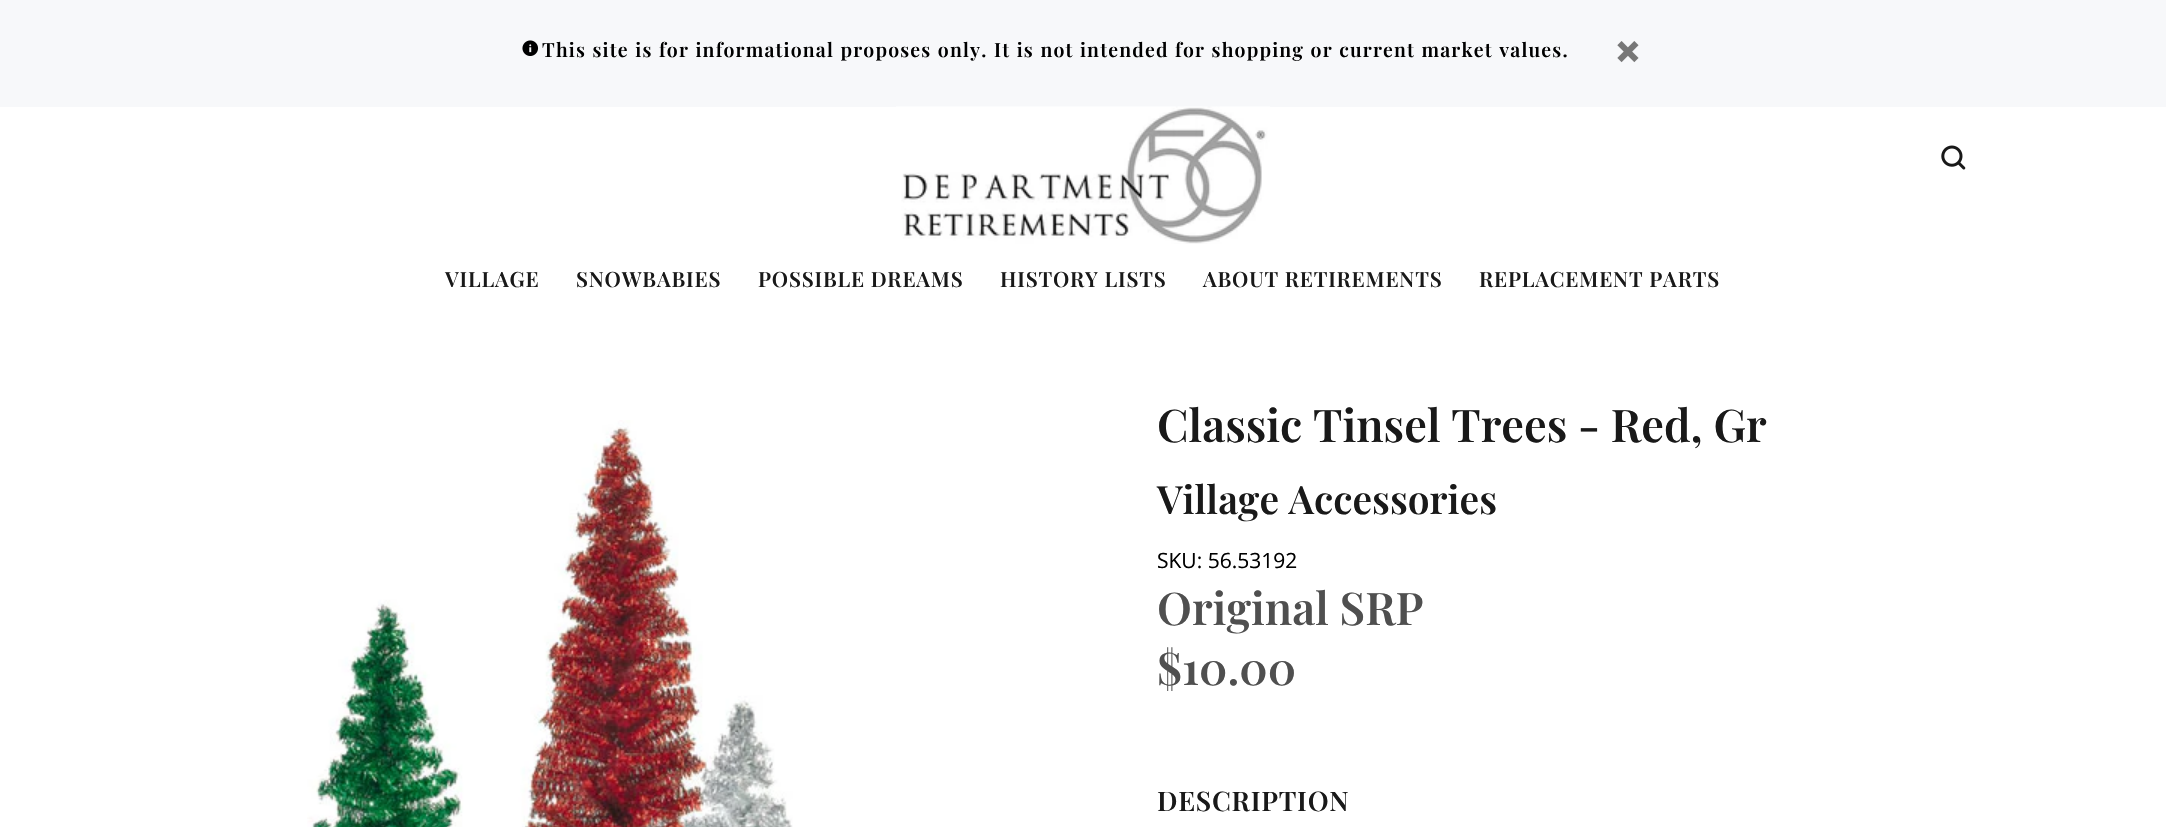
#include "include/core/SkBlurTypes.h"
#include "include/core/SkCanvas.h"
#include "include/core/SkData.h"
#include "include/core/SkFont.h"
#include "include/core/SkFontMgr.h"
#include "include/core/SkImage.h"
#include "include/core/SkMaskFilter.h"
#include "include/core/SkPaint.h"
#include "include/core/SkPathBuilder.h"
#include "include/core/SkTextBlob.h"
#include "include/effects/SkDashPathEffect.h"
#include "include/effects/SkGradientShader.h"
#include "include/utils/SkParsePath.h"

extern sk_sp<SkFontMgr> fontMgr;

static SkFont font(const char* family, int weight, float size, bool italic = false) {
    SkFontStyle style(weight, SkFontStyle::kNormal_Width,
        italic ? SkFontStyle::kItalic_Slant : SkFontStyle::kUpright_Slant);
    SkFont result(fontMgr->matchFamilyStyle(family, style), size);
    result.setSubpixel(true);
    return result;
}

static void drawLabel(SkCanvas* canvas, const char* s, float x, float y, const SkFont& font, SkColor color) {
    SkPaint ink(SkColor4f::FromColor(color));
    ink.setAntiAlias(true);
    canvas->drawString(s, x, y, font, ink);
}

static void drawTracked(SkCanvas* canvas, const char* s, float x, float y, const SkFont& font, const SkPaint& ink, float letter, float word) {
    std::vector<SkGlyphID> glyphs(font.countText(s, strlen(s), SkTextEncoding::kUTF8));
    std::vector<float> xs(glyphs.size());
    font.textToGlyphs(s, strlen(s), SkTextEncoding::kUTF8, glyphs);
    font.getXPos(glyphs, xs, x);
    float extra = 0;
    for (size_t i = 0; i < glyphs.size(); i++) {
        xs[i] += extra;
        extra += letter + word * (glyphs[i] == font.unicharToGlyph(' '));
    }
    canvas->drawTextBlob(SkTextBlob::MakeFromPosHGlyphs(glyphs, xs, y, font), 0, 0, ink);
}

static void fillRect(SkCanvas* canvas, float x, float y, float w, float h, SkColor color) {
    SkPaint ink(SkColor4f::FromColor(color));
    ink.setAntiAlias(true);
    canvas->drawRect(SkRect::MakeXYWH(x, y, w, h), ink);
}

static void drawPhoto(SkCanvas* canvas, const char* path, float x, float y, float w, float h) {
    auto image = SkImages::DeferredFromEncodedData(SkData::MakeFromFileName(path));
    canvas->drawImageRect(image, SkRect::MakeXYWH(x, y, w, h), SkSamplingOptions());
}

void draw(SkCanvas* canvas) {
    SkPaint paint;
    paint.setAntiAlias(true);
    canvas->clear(0xFFFFFFFF);
    fillRect(canvas, 0, 0, 2166, 107, 0xFFF7F8FA);
    drawPhoto(canvas, "assets/img1.png", 522, 40, 17, 16);
    SkFont font1 = font("Playfair Display", 600, 19.5f);
    paint.setColor(0xFF000000);
    drawTracked(canvas, "This site is for informational proposes only. It is not intended for shopping or current market values.", 542, 57, font1, paint, 1.17f, 0.6f);
    drawPhoto(canvas, "assets/img2.png", 1617, 41, 22, 22);
    drawPhoto(canvas, "assets/img3.png", 896, 106, 374, 138);
    drawPhoto(canvas, "assets/img4.png", 1941, 145, 25, 25);
    SkFont font2 = font("Playfair Display", 600, 21);
    paint.setColor(0xFF191919);
    drawTracked(canvas, "VILLAGE", 445, 287, font2, paint, 0.8f, 0);
    drawTracked(canvas, "SNOWBABIES", 576, 287, font2, paint, 0.8f, 0);
    drawTracked(canvas, "POSSIBLE DREAMS", 758, 287, font2, paint, 0.8f, 0);
    drawTracked(canvas, "HISTORY LISTS", 1000, 287, font2, paint, 0.8f, 0);
    drawTracked(canvas, "ABOUT RETIREMENTS", 1203, 287, font2, paint, 0.8f, 0);
    drawTracked(canvas, "REPLACEMENT PARTS", 1479, 287, font2, paint, 0.8f, 0);
    drawPhoto(canvas, "assets/img5.png", 307, 420, 486, 407);
    SkFont font3 = font("Playfair Display", 600, 45);
    drawLabel(canvas, "Classic Tinsel Trees - Red, Gr", 1157, 442, font3, 0xFF191919);
    SkFont font4 = font("Playfair Display", 600, 39);
    drawLabel(canvas, "Village Accessories", 1157, 514, font4, 0xFF191919);
    SkFont font5 = font("Open Sans", 400, 21);
    drawLabel(canvas, "SKU: 56.53192", 1157, 568, font5, 0xFF000000);
    drawLabel(canvas, "Original SRP", 1157, 625, font3, 0xFF4F4F4F);
    drawLabel(canvas, "$10.00", 1157, 685, font3, 0xFF4F4F4F);
    SkFont font6 = font("Playfair Display", 600, 27);
    drawTracked(canvas, "DESCRIPTION", 1157, 811, font6, paint, 0.75f, 0);
}
